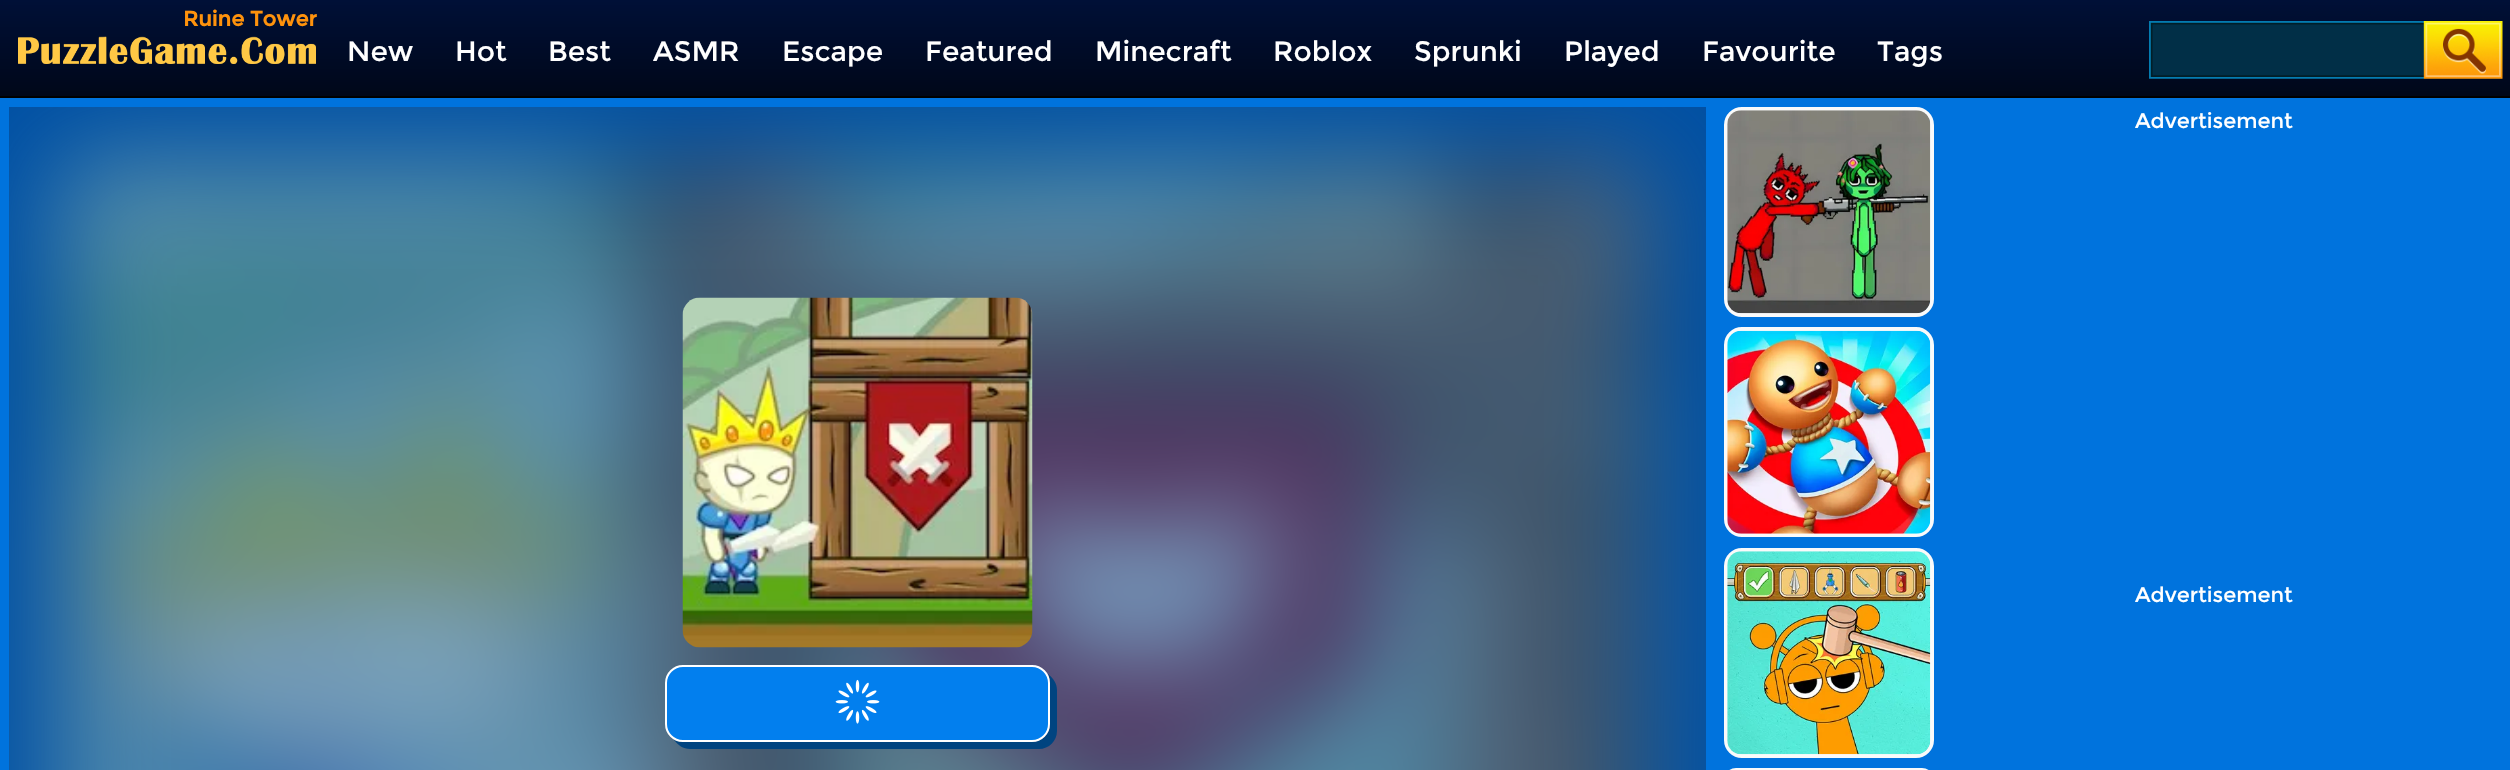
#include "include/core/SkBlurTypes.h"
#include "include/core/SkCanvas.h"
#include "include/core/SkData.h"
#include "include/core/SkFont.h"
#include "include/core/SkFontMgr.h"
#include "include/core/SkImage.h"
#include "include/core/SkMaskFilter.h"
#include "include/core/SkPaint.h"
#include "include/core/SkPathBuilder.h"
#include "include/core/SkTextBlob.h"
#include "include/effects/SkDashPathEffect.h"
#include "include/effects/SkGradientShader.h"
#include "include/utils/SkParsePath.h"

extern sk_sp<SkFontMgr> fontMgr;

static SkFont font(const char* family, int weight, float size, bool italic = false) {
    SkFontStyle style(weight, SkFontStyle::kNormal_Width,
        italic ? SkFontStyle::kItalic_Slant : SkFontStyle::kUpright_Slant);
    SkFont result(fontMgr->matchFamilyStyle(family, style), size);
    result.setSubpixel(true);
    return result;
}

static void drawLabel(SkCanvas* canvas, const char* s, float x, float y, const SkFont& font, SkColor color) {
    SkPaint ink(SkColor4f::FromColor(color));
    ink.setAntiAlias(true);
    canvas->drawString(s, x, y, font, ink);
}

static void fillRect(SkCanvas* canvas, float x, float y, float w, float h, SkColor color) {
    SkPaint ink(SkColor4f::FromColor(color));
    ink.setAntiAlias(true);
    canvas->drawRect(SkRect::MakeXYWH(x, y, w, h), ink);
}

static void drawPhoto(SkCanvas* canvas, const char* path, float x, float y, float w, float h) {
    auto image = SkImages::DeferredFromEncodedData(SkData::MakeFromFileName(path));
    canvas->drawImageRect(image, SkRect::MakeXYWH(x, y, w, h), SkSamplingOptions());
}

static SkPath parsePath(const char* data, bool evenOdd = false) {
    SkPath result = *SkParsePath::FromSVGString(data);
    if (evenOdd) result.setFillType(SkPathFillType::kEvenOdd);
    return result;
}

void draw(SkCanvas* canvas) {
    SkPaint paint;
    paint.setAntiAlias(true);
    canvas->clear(0xFF0073DD);
    {
        const SkColor colors[] = {0xFF001037, 0xFF000719};
        const float stops[] = {0, 1};
        const SkPoint ends[] = {{1256, 0}, {1256, 96}};
        paint.setShader(SkGradientShader::MakeLinear(ends, colors, stops, 2, SkTileMode::kClamp));
        paint.setAlpha(255);
    }
    canvas->drawRect(SkRect::MakeXYWH(0, 0, 2510, 96), paint);
    fillRect(canvas, 0, 96, 2510, 2, 0xFF000000);
    SkFont font1 = font("Montserrat", 700, 21);
    drawLabel(canvas, "Ruine Tower", 183, 26, font1, 0xFFFE920C);
    drawPhoto(canvas, "assets/img1.png", 18, 36, 298, 28);
    SkFont font2 = font("Montserrat", 400, 28);
    drawLabel(canvas, "New", 347, 61, font2, 0xFFFFFFFF);
    drawLabel(canvas, "Hot", 455, 61, font2, 0xFFFFFFFF);
    drawLabel(canvas, "Best", 548, 61, font2, 0xFFFFFFFF);
    drawLabel(canvas, "ASMR", 653, 61, font2, 0xFFFFFFFF);
    drawLabel(canvas, "Escape", 782, 61, font2, 0xFFFFFFFF);
    drawLabel(canvas, "Featured", 925, 61, font2, 0xFFFFFFFF);
    drawLabel(canvas, "Minecraft", 1095, 61, font2, 0xFFFFFFFF);
    drawLabel(canvas, "Roblox", 1273, 61, font2, 0xFFFFFFFF);
    drawLabel(canvas, "Sprunki", 1414, 61, font2, 0xFFFFFFFF);
    drawLabel(canvas, "Played", 1564, 61, font2, 0xFFFFFFFF);
    drawLabel(canvas, "Favourite", 1702, 61, font2, 0xFFFFFFFF);
    drawLabel(canvas, "Tags", 1877, 61, font2, 0xFFFFFFFF);
    drawPhoto(canvas, "assets/img2.png", 2149, 21, 354, 58);
    fillRect(canvas, 9, 107, 1697, 663, 0xFF0050A4);
    drawPhoto(canvas, "assets/img3.png", 9, 107, 1697, 663);
    drawPhoto(canvas, "assets/img4.png", 682, 297, 351, 351);
    paint.setShader(nullptr);
    paint.setColor(0xFF004480);
    canvas->drawPath(parsePath("M674 740C678 745 683 749 690 749H1039C1049 749 1057 741 1057 731V690C1057 683 1053 678 1048 674C1049 677 1050 680 1050 682V724C1050 734 1042 742 1032 742H682C680 742 677 741 674 740Z"), paint);
    paint.setColor(0xFF027FEE);
    canvas->drawRoundRect(SkRect::MakeXYWH(666, 666, 383, 75), 17, 17, paint);
    paint.setStroke(true);
    paint.setStrokeWidth(2);
    paint.setColor(0xFFFFFFFF);
    canvas->drawRoundRect(SkRect::MakeXYWH(666, 666, 383, 75), 17, 17, paint);
    drawPhoto(canvas, "assets/img5.png", 835, 679, 45, 45);
    paint.setStrokeWidth(4);
    paint.setColor(0xFFFAFAFA);
    canvas->drawRoundRect(SkRect::MakeXYWH(1726, 109, 206, 206), 16, 16, paint);
    drawPhoto(canvas, "assets/img6.png", 1727, 110, 204, 204);
    canvas->drawRoundRect(SkRect::MakeXYWH(1726, 329, 206, 206), 16, 16, paint);
    drawPhoto(canvas, "assets/img7.png", 1727, 330, 204, 204);
    canvas->drawRoundRect(SkRect::MakeXYWH(1726, 550, 206, 206), 16, 16, paint);
    drawPhoto(canvas, "assets/img8.png", 1727, 551, 204, 204);
    canvas->drawRoundRect(SkRect::MakeXYWH(1726, 770, 206, 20), 16, 16, paint);
    SkFont font3 = font("Montserrat", 400, 21);
    drawLabel(canvas, "Advertisement", 2135, 128, font3, 0xFFFFFFFF);
    drawLabel(canvas, "Advertisement", 2135, 602, font3, 0xFFFFFFFF);
}
